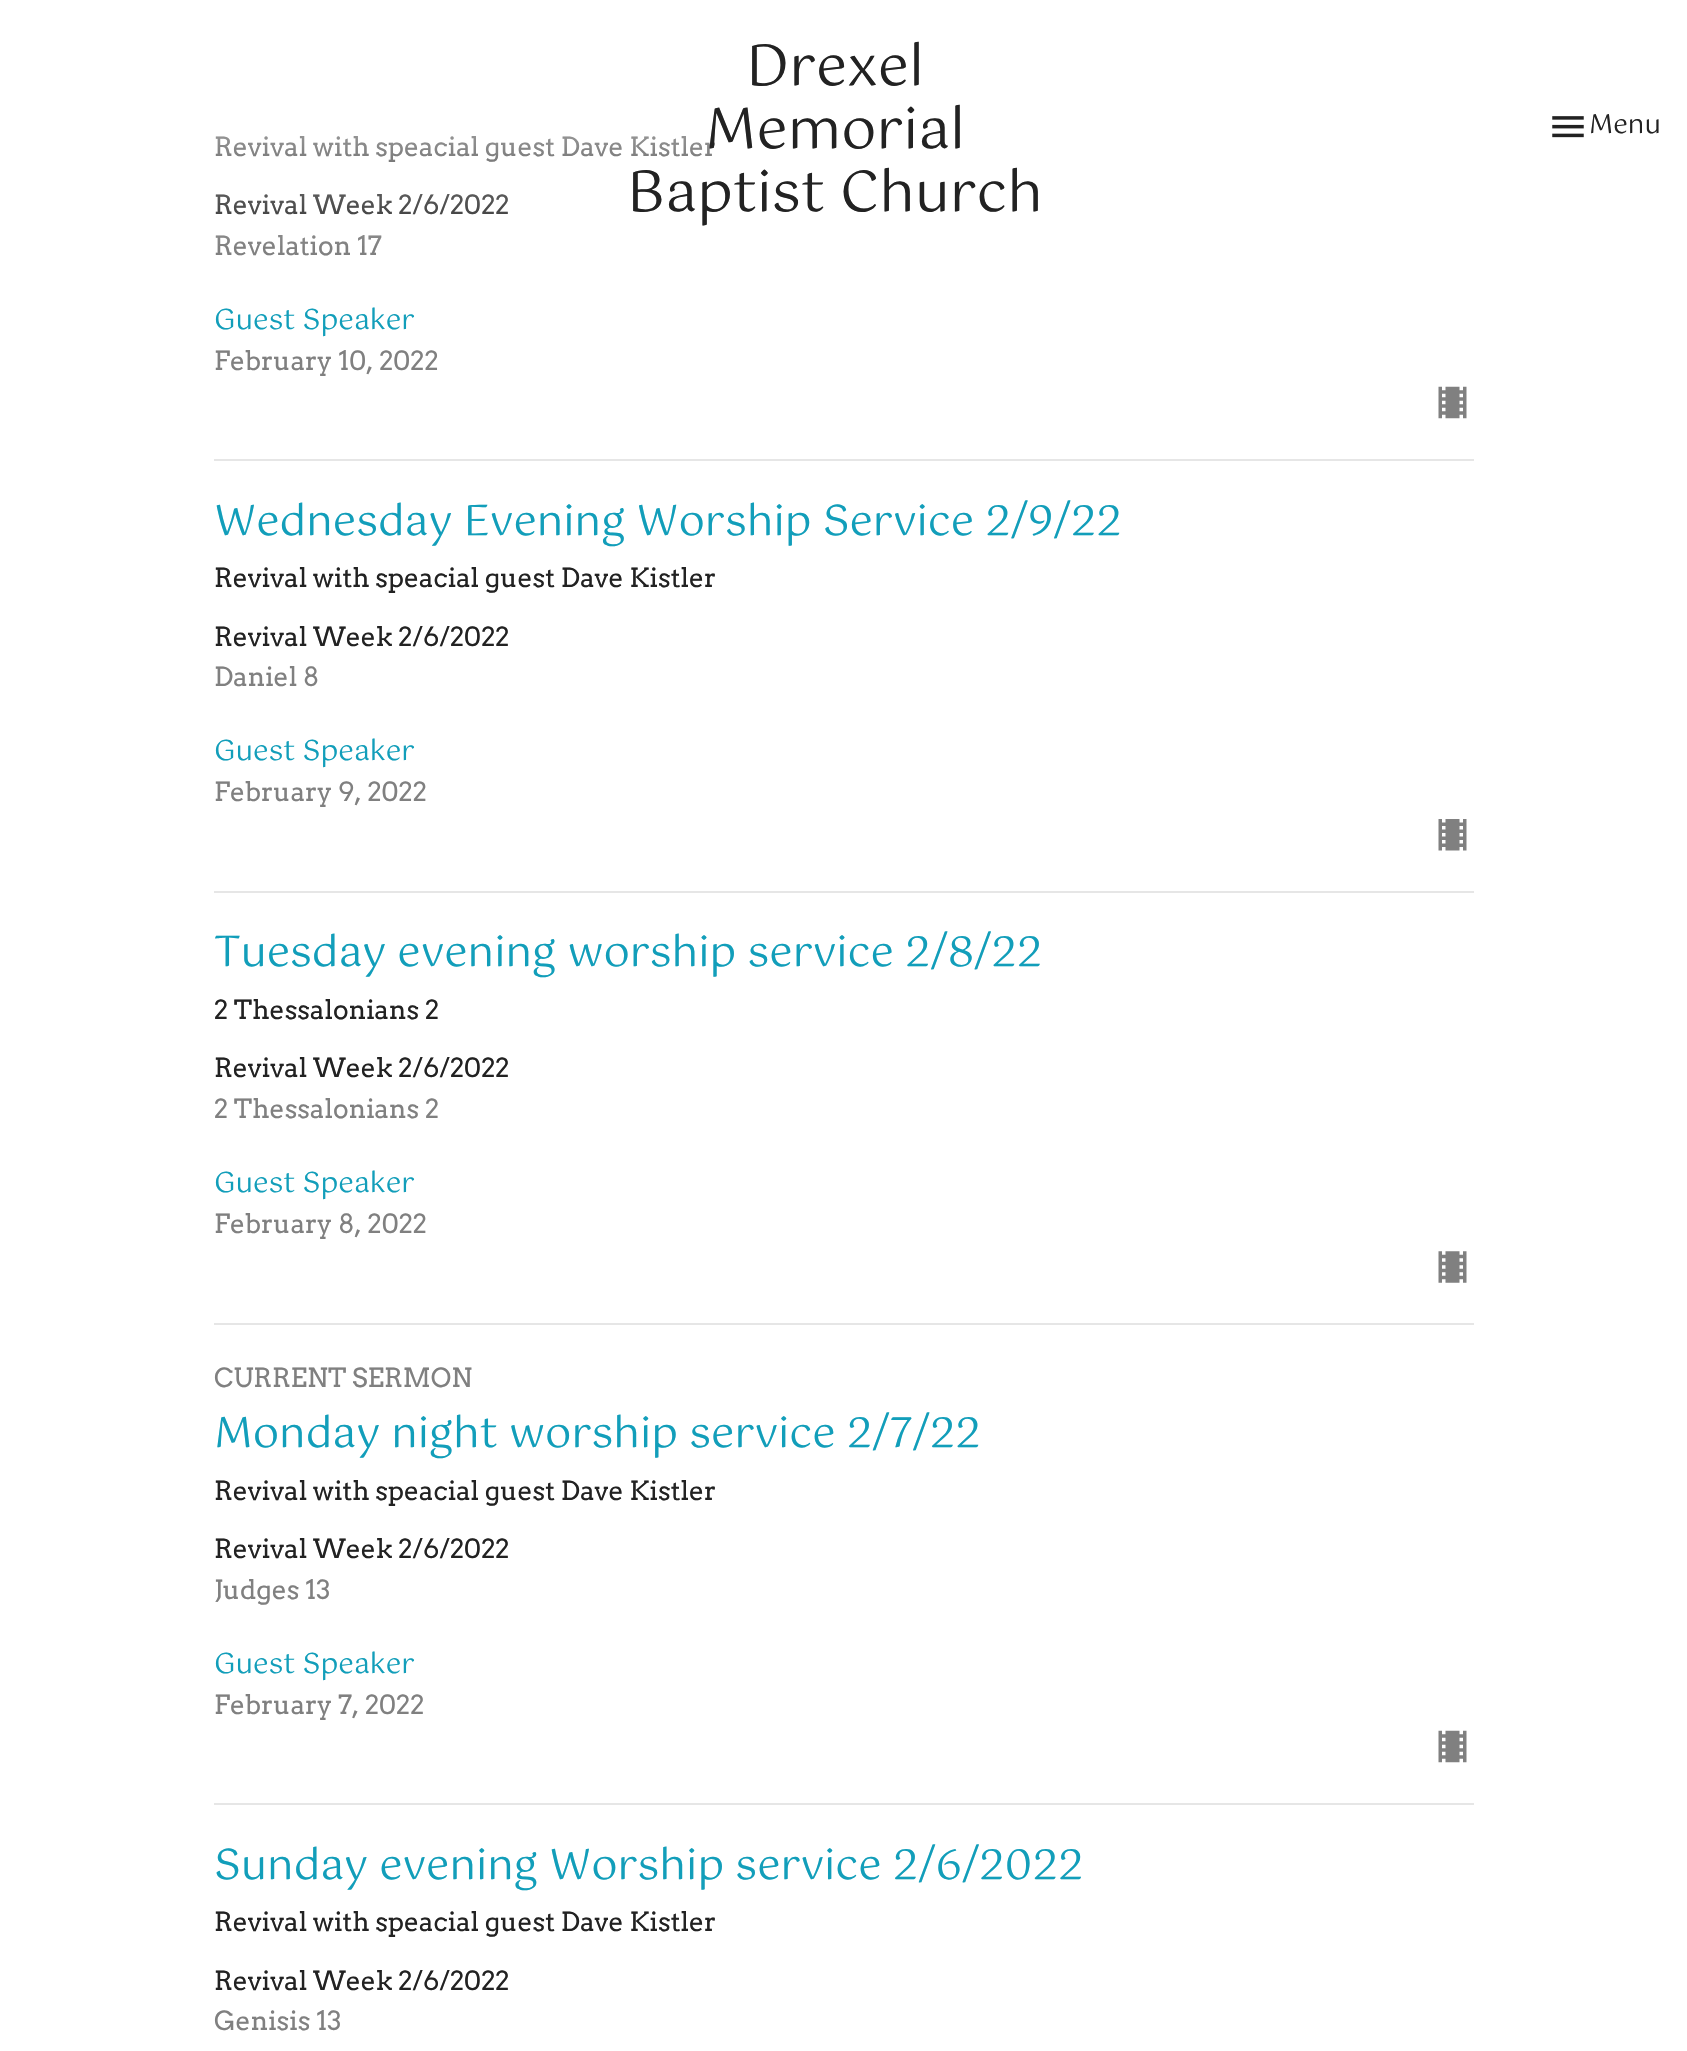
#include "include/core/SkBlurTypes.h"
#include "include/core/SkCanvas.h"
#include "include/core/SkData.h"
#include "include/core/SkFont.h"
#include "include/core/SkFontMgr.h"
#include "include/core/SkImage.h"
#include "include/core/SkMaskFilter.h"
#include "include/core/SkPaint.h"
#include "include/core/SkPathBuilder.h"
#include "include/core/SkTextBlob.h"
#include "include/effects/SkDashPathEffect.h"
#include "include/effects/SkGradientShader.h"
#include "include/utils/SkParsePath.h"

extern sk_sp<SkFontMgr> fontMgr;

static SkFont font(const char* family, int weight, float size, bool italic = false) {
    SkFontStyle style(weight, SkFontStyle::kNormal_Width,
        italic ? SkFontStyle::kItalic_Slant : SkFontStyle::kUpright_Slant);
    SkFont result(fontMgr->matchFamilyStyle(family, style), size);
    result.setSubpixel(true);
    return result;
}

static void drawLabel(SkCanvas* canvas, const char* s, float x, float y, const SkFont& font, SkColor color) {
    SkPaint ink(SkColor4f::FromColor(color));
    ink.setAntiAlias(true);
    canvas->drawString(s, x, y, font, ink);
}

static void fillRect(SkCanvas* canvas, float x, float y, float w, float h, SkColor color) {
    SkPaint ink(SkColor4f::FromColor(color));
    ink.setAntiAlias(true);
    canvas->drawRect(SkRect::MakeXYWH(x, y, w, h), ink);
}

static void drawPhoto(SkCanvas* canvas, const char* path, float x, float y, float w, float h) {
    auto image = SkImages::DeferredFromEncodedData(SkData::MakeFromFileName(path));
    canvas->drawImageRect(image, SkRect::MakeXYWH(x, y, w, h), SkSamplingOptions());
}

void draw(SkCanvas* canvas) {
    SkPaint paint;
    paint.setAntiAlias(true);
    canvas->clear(0xFFFFFFFF);
    SkFont font1 = font("Arvo", 400, 26.25f);
    drawLabel(canvas, "Revival with speacial guest Dave Kistler", 214, 156, font1, 0xFF222222);
    drawLabel(canvas, "Revival Week 2/6/2022", 214, 214, font1, 0xFF222222);
    drawLabel(canvas, "Revelation 17", 214, 255, font1, 0xFF808080);
    {
        const SkColor colors[] = {0x00FFFFFF, 0xFFFFFFFF, 0xFFFFFFFF};
        const float stops[] = {0.05f, 0.9f, 1};
        const SkPoint ends[] = {{844, 264}, {844, 0}};
        paint.setShader(SkGradientShader::MakeLinear(ends, colors, stops, 3, SkTileMode::kClamp));
        paint.setAlpha(255);
    }
    canvas->drawRect(SkRect::MakeXYWH(215, 136, 500, 110), paint);
    SkFont font2 = font("Gotu", 400, 56);
    drawLabel(canvas, "Drexel", 746, 85, font2, 0xFF222222);
    drawLabel(canvas, "Memorial", 705, 148, font2, 0xFF222222);
    drawLabel(canvas, "Baptist Church", 627, 211, font2, 0xFF222222);
    drawPhoto(canvas, "assets/img1.png", 1552, 116, 32, 22);
    SkFont font3 = font("Gotu", 400, 26.25f);
    drawLabel(canvas, "Menu", 1589, 133, font3, 0xFF222222);
    fillRect(canvas, 214, 459, 1260, 2, 0xFFE6E6E6);
    SkFont font4 = font("Gotu", 400, 28);
    drawLabel(canvas, "Guest Speaker", 214, 329, font4, 0xFF129EBA);
    drawLabel(canvas, "February 10, 2022", 214, 370, font1, 0xFF808080);
    drawPhoto(canvas, "assets/img2.png", 1438, 386, 29, 33);
    fillRect(canvas, 214, 891, 1260, 2, 0xFFE6E6E6);
    SkFont font5 = font("Gotu", 400, 42);
    drawLabel(canvas, "Wednesday Evening Worship Service 2/9/22", 214, 535, font5, 0xFF129EBA);
    drawLabel(canvas, "Revival with speacial guest Dave Kistler", 214, 587, font1, 0xFF222222);
    drawLabel(canvas, "Revival Week 2/6/2022", 214, 646, font1, 0xFF222222);
    drawLabel(canvas, "Daniel 8", 214, 686, font1, 0xFF808080);
    drawLabel(canvas, "Guest Speaker", 214, 760, font4, 0xFF129EBA);
    drawLabel(canvas, "February 9, 2022", 214, 801, font1, 0xFF808080);
    drawPhoto(canvas, "assets/img3.png", 1438, 819, 29, 32);
    fillRect(canvas, 214, 1323, 1260, 2, 0xFFE6E6E6);
    drawLabel(canvas, "Tuesday evening worship service 2/8/22", 214, 966, font5, 0xFF129EBA);
    drawLabel(canvas, "2 Thessalonians 2", 214, 1019, font1, 0xFF222222);
    drawLabel(canvas, "Revival Week 2/6/2022", 214, 1077, font1, 0xFF222222);
    drawLabel(canvas, "2 Thessalonians 2", 214, 1118, font1, 0xFF808080);
    drawLabel(canvas, "Guest Speaker", 214, 1192, font4, 0xFF129EBA);
    drawLabel(canvas, "February 8, 2022", 214, 1233, font1, 0xFF808080);
    drawPhoto(canvas, "assets/img4.png", 1438, 1251, 29, 32);
    fillRect(canvas, 214, 1803, 1260, 2, 0xFFE6E6E6);
    drawLabel(canvas, "CURRENT SERMON", 214, 1387, font1, 0xFF808080);
    drawLabel(canvas, "Monday night worship service 2/7/22", 214, 1447, font5, 0xFF129EBA);
    drawLabel(canvas, "Revival with speacial guest Dave Kistler", 214, 1500, font1, 0xFF222222);
    drawLabel(canvas, "Revival Week 2/6/2022", 214, 1558, font1, 0xFF222222);
    drawLabel(canvas, "Judges 13", 214, 1599, font1, 0xFF808080);
    drawLabel(canvas, "Guest Speaker", 214, 1673, font4, 0xFF129EBA);
    drawLabel(canvas, "February 7, 2022", 214, 1714, font1, 0xFF808080);
    drawPhoto(canvas, "assets/img2.png", 1438, 1730, 29, 33);
    drawLabel(canvas, "Sunday evening Worship service 2/6/2022", 214, 1879, font5, 0xFF129EBA);
    drawLabel(canvas, "Revival with speacial guest Dave Kistler", 214, 1931, font1, 0xFF222222);
    drawLabel(canvas, "Revival Week 2/6/2022", 214, 1990, font1, 0xFF222222);
    drawLabel(canvas, "Genisis 13", 214, 2030, font1, 0xFF808080);
}
